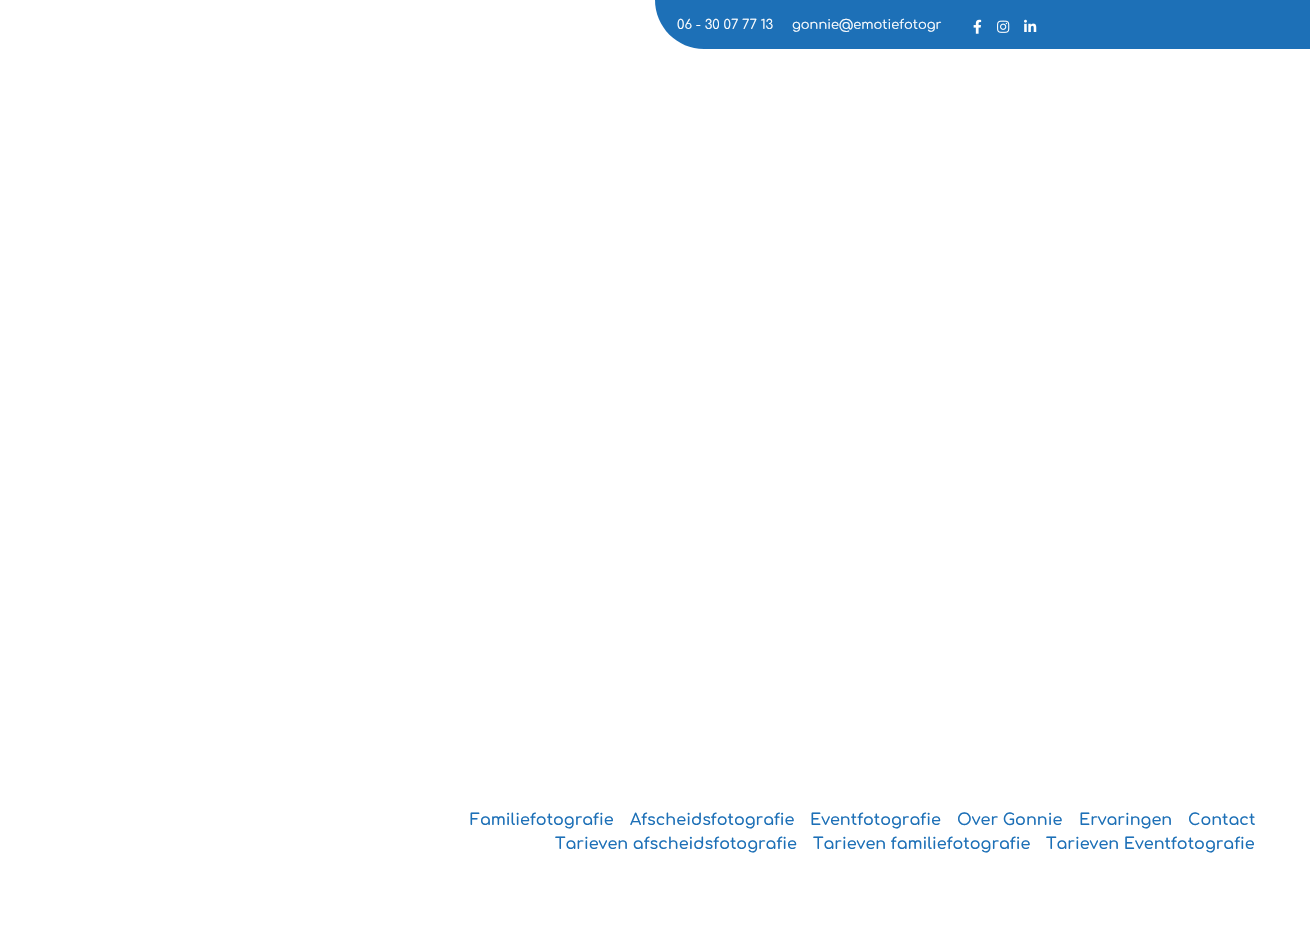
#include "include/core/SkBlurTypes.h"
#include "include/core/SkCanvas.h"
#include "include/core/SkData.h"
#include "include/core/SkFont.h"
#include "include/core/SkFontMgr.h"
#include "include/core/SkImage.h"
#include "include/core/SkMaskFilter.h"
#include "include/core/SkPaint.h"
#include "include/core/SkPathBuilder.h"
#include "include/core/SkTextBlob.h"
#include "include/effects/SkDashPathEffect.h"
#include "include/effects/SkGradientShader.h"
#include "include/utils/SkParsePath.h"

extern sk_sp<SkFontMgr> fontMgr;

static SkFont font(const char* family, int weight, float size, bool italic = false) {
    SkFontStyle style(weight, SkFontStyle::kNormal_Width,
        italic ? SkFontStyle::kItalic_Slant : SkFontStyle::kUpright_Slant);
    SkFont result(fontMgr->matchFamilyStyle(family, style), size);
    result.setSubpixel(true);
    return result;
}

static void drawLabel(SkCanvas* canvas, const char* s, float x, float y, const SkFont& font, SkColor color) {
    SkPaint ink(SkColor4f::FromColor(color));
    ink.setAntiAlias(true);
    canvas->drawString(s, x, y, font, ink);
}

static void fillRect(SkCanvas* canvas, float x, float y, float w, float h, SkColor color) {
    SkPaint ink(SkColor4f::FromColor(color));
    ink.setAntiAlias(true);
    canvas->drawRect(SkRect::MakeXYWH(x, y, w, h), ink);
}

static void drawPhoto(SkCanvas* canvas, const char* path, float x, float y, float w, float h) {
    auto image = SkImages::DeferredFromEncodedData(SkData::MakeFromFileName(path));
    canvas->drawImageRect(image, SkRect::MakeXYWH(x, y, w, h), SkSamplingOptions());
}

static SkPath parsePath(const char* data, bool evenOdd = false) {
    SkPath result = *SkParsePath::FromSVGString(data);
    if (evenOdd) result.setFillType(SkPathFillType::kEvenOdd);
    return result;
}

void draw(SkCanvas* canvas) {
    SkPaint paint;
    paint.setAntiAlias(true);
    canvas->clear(0xFFFFFFFF);
    paint.setColor(0xFF1D70B7);
    canvas->drawPath(parsePath("M655 0H773V49H704C677 49 655 27 655 0Z"), paint);
    SkFont font1 = font("Comfortaa", 400, 13);
    drawLabel(canvas, "06 - 30 07 77 13", 677, 29, font1, 0xFFFFFFFF);
    fillRect(canvas, 773, 0, 537, 49, 0xFF1D70B7);
    drawLabel(canvas, "gonnie@emotiefotogr", 792, 29, font1, 0xFFFFFFFF);
    drawPhoto(canvas, "assets/img1.png", 973, 19, 9, 15);
    drawPhoto(canvas, "assets/img2.png", 997, 20, 13, 13);
    drawPhoto(canvas, "assets/img3.png", 1024, 19, 13, 13);
    SkFont font2 = font("Comfortaa", 600, 16);
    drawLabel(canvas, "Familiefotografie", 470, 825, font2, 0xFF1D70B7);
    drawLabel(canvas, "Afscheidsfotografie", 630, 825, font2, 0xFF1D70B7);
    drawLabel(canvas, "Eventfotografie", 810, 825, font2, 0xFF1D70B7);
    drawLabel(canvas, "Over Gonnie", 957, 825, font2, 0xFF1D70B7);
    drawLabel(canvas, "Ervaringen", 1079, 825, font2, 0xFF1D70B7);
    drawLabel(canvas, "Contact", 1188, 825, font2, 0xFF1D70B7);
    drawLabel(canvas, "Tarieven afscheidsfotografie", 555, 849, font2, 0xFF1D70B7);
    drawLabel(canvas, "Tarieven familiefotografie", 813, 849, font2, 0xFF1D70B7);
    drawLabel(canvas, "Tarieven Eventfotografie", 1046, 849, font2, 0xFF1D70B7);
}
